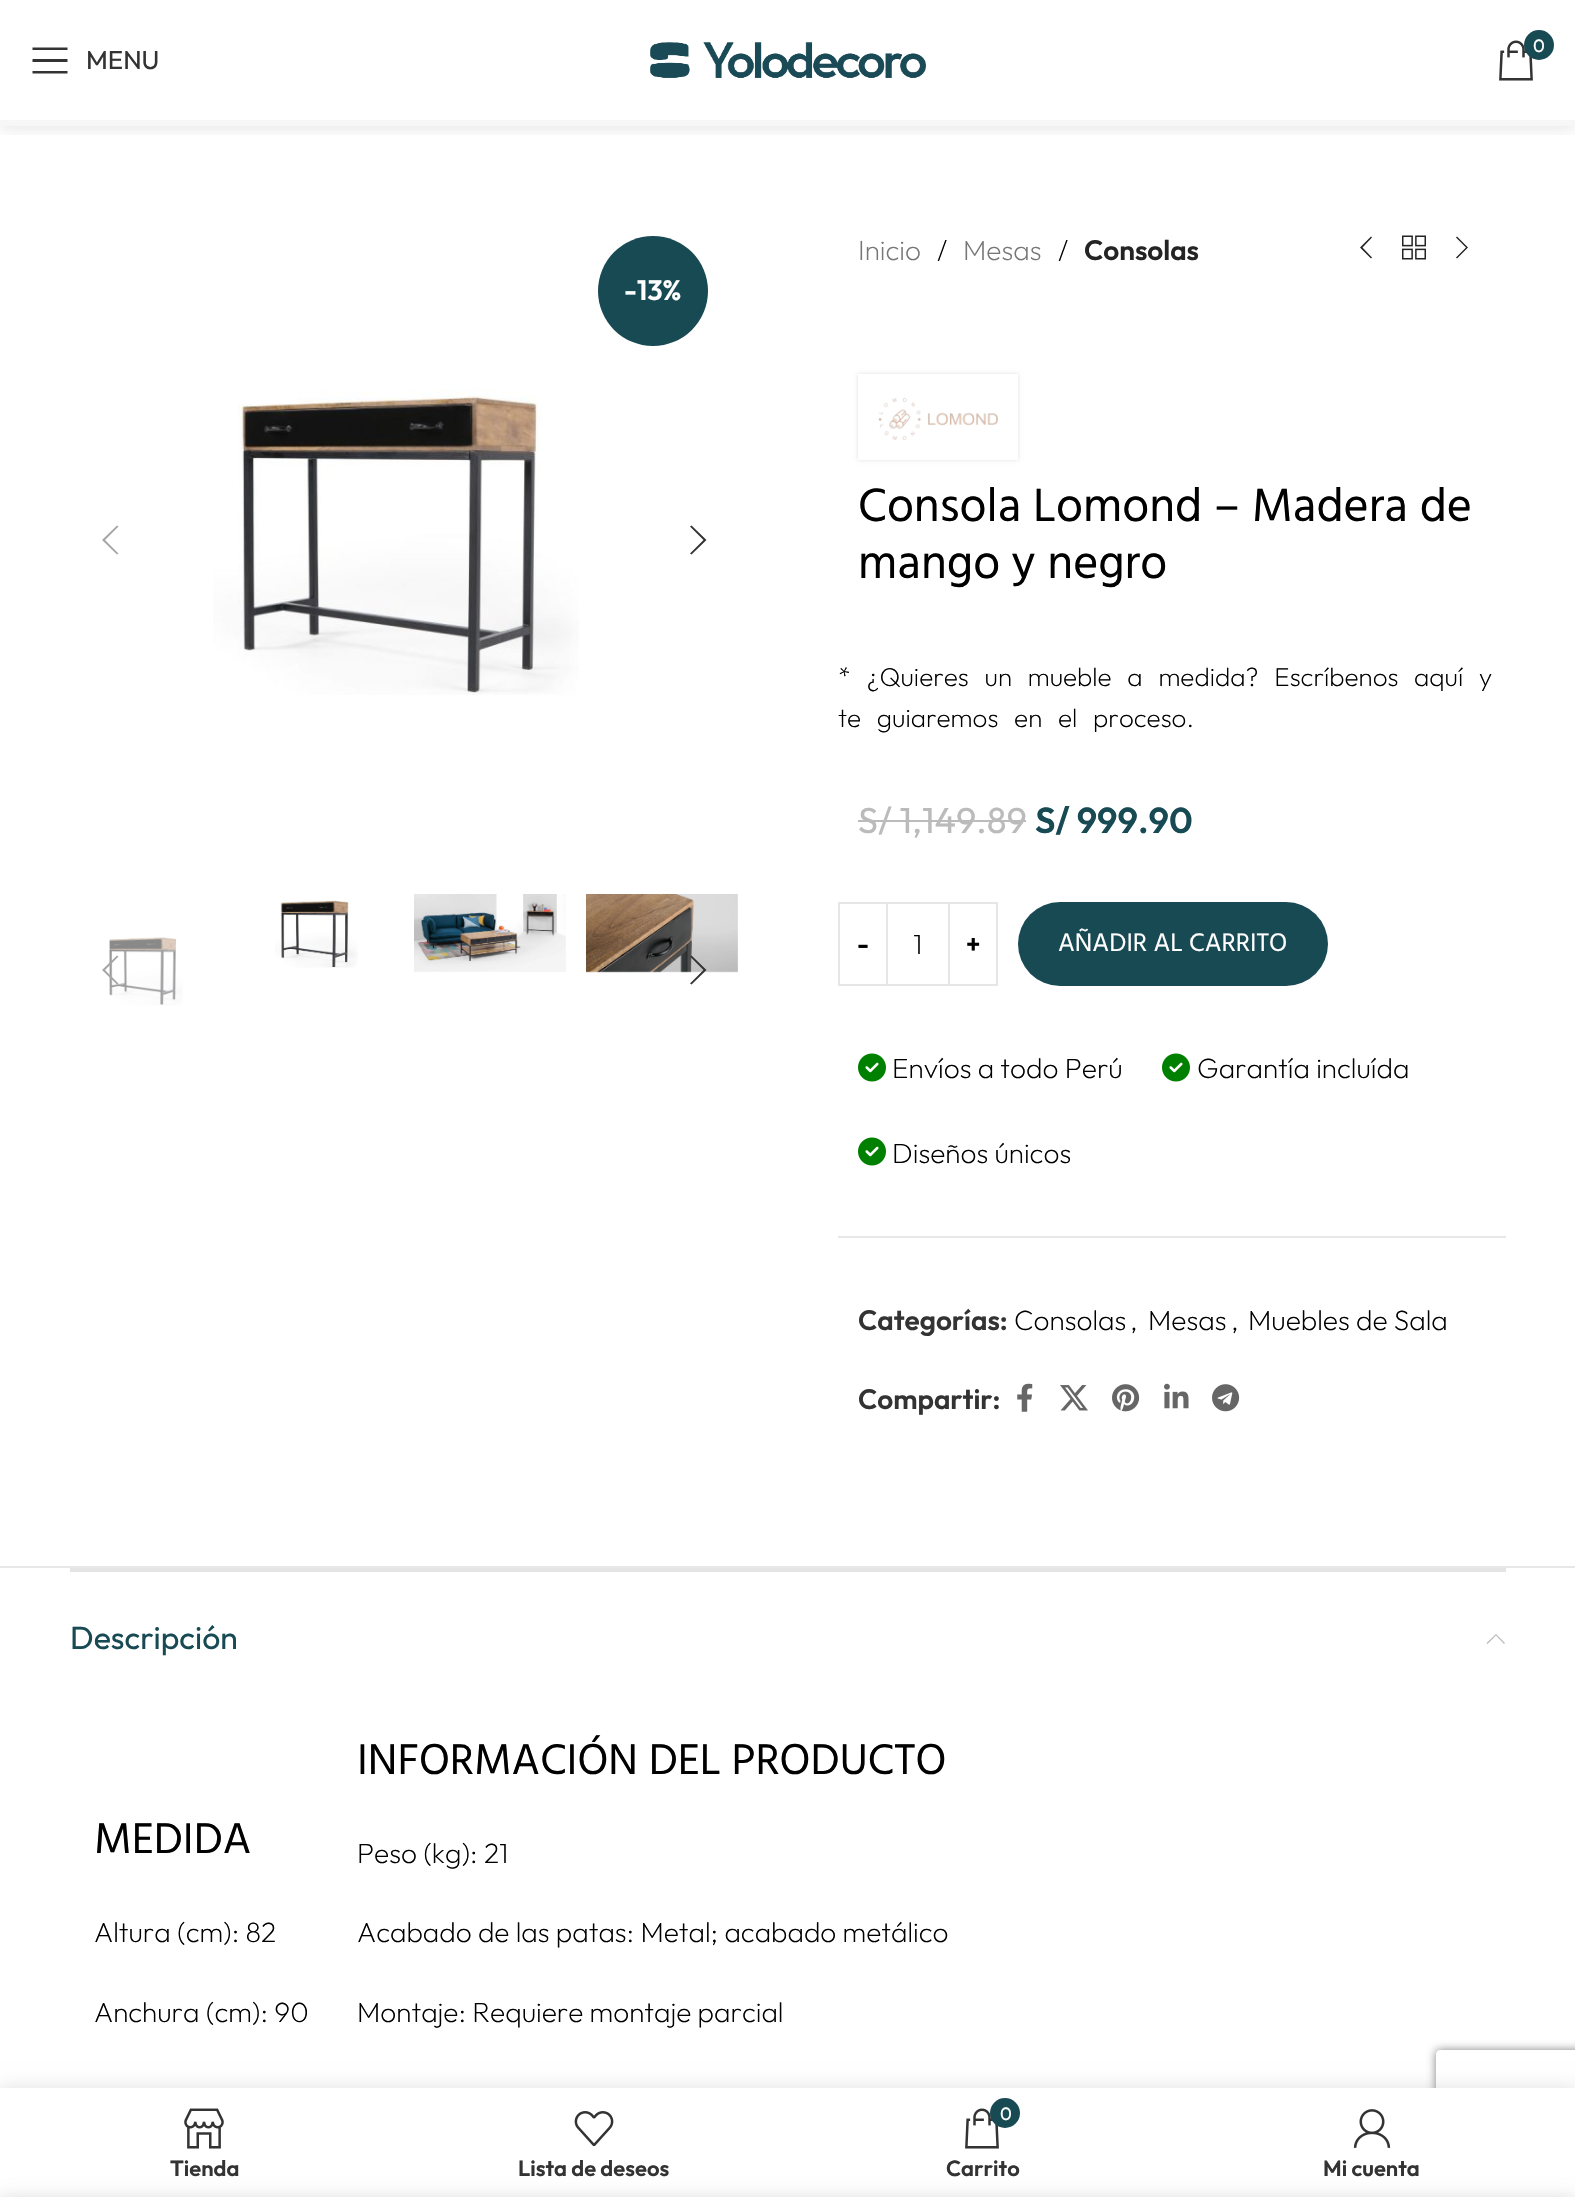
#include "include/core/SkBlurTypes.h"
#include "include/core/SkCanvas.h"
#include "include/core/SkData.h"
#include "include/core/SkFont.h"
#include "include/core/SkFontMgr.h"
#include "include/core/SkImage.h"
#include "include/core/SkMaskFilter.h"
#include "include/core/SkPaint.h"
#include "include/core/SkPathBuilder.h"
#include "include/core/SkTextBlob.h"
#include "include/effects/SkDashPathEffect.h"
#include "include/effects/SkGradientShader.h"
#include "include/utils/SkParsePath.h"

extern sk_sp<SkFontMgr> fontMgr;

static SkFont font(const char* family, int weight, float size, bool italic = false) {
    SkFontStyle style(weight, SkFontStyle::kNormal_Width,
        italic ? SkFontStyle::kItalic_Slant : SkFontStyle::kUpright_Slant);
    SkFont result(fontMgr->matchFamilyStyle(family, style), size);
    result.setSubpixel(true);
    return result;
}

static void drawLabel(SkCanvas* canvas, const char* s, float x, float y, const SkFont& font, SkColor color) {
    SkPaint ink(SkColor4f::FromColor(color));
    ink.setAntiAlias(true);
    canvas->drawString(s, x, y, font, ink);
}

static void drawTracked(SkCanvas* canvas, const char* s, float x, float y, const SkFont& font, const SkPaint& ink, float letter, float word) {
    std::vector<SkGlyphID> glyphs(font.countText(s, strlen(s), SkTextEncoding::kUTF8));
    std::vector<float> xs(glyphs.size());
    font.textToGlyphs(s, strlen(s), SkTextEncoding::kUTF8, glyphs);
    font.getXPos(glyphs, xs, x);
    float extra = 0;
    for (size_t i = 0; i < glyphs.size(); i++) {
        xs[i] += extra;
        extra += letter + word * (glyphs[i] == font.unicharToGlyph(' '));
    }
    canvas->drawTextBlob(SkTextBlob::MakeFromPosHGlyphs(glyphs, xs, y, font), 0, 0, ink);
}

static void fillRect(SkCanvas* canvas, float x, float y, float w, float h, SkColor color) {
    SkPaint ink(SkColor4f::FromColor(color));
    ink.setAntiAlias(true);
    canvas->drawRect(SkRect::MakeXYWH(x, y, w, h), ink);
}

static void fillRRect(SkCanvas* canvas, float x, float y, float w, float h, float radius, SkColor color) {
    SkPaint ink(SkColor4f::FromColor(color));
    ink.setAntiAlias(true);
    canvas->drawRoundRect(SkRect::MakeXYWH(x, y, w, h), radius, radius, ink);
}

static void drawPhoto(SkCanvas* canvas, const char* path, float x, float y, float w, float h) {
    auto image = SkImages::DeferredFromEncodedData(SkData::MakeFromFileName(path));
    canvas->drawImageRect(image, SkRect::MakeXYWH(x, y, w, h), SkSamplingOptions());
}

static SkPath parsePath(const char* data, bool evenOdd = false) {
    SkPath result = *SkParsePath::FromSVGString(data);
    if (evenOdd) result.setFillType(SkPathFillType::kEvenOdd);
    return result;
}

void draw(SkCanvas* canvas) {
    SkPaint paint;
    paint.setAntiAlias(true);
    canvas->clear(0xFFFFFFFF);
    canvas->save();
    canvas->clipRect(SkRect::MakeXYWH(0, 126, 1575, 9));
    paint.setColor(0x1A000000);
    paint.setMaskFilter(SkMaskFilter::MakeBlur(kNormal_SkBlurStyle, 8));
    canvas->drawRect(SkRect::MakeXYWH(0, 2, 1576, 126), paint);
    paint.setMaskFilter(nullptr);
    canvas->restore();
    fillRect(canvas, 0, 120, 1575, 6, 0xFFF7F7F7);
    paint.setColor(0xFF333333);
    canvas->drawPath(parsePath("M32.5 50H67.5V47.5H32.5ZM32.5 62H67.5V59H32.5ZM32.5 73.5H67.5V71H32.5Z"), paint);
    SkFont font1 = font("Outfit", 400, 26);
    drawLabel(canvas, "MENU", 86, 69, font1, 0xFF333333);
    drawPhoto(canvas, "assets/img1.png", 650, 42, 276, 36);
    drawPhoto(canvas, "assets/img2.png", 1499, 40, 34, 41);
    paint.setColor(0xFF184A54);
    canvas->drawCircle(1539, 45, 15, paint);
    SkFont font2 = font("Outfit", 400, 18);
    drawLabel(canvas, "0", 1533, 52, font2, 0xFFFFFFFF);
    canvas->drawCircle(653, 291, 55, paint);
    SkFont font3 = font("Outfit", 600, 28);
    drawLabel(canvas, "-13%", 624, 300, font3, 0xFFFFFFFF);
    drawPhoto(canvas, "assets/img3.png", 213, 389, 366, 306);
    paint.setColor(0xFFA5A5A5);
    canvas->drawPath(parsePath("M118.5 526.5L117 525.5L102 540L117 554.5L118.5 553.5L105 540Z"), paint);
    paint.setColor(0xFF333333);
    canvas->drawPath(parsePath("M690 526.5L703.5 540L690 553.5L691.5 554.5L706.5 540L691.5 525.5Z"), paint);
    drawPhoto(canvas, "assets/img4.png", 109, 937, 74, 69);
    drawPhoto(canvas, "assets/img5.png", 275, 900, 83, 68);
    drawPhoto(canvas, "assets/img6.png", 414, 894, 152, 78);
    drawPhoto(canvas, "assets/img7.png", 586, 894, 152, 79);
    paint.setColor(0xFFA5A5A5);
    canvas->drawPath(parsePath("M118.5 956.5L117 955.5L102 970L117 984.5L118.5 983.5L105 970Z"), paint);
    paint.setColor(0xFF333333);
    canvas->drawPath(parsePath("M690 956.5L703.5 970L690 983.5L691.5 984.5L706.5 970L691.5 955.5Z"), paint);
    SkFont font4 = font("Outfit", 200, 28);
    drawLabel(canvas, "Inicio", 858, 260, font4, 0xFF767676);
    drawLabel(canvas, "/", 937, 260, font4, 0xFF000000);
    drawLabel(canvas, "Mesas", 963, 260, font4, 0xFF767676);
    drawLabel(canvas, "/", 1058, 260, font4, 0xFF000000);
    drawLabel(canvas, "Consolas", 1084, 260, font3, 0xFF242424);
    paint.setColor(0xFF242424);
    canvas->drawPath(parsePath("M1372 237.5L1371 236.5L1360 247.5L1371 258.5L1372 257.5L1362.5 247.5Z"), paint);
    drawPhoto(canvas, "assets/img8.png", 1402, 235, 24, 25);
    canvas->drawPath(parsePath("M1456 237.5L1466 247.5L1456 257.5L1457 258.5L1468 247.5L1457 236.5Z"), paint);
    canvas->save();
    canvas->clipPath(parsePath("M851 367H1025V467H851ZM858 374H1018V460H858Z", true), true);
    paint.setColor(0x1F000000);
    paint.setMaskFilter(SkMaskFilter::MakeBlur(kNormal_SkBlurStyle, 2));
    canvas->drawRect(SkRect::MakeXYWH(858, 374, 160, 86), paint);
    paint.setMaskFilter(nullptr);
    canvas->restore();
    drawPhoto(canvas, "assets/img9.png", 878, 398, 120, 42);
    SkFont font5 = font("Hind", 400, 48);
    drawLabel(canvas, "Consola Lomond – Madera de", 858, 521, font5, 0xFF000000);
    drawLabel(canvas, "mango y negro", 858, 578, font5, 0xFF000000);
    SkFont font6 = font("Outfit", 200, 26);
    paint.setColor(0xFF000000);
    drawTracked(canvas, "* ¿Quieres un mueble a medida? Escríbenos", 838, 686, font6, paint, 0, 10);
    drawLabel(canvas, "aquí", 1414, 686, font6, 0xFF000000);
    drawLabel(canvas, "y", 1479, 686, font6, 0xFF000000);
    drawTracked(canvas, "te guiaremos en el proceso.", 838, 727, font6, paint, 0, 10);
    SkFont font7 = font("Outfit", 400, 36);
    drawLabel(canvas, "S/ 1,149.89", 858, 833, font7, 0xFFBBBBBB);
    fillRect(canvas, 858, 820, 168, 2, 0xFFBBBBBB);
    SkFont font8 = font("Outfit", 600, 36);
    drawLabel(canvas, "S/ 999.90", 1035, 833, font8, 0xFF184A54);
    paint.setStroke(true);
    paint.setStrokeWidth(2);
    paint.setColor(0xFFE6E6E6);
    canvas->drawRect(SkRect::MakeXYWH(839, 903, 48, 82), paint);
    SkFont font9 = font("Outfit", 600, 26);
    drawLabel(canvas, "-", 857, 953, font9, 0xFF000000);
    fillRect(canvas, 888, 902, 60, 2, 0xFFE6E6E6);
    fillRect(canvas, 888, 984, 60, 2, 0xFFE6E6E6);
    drawLabel(canvas, "1", 913, 954, font4, 0xFF000000);
    canvas->drawRect(SkRect::MakeXYWH(949, 903, 48, 82), paint);
    drawLabel(canvas, "+", 966, 953, font9, 0xFF000000);
    fillRRect(canvas, 1018, 902, 310, 84, 42, 0xFF184A54);
    SkFont font10 = font("Hind", 400, 26);
    drawLabel(canvas, "AÑADIR AL CARRITO", 1058, 951, font10, 0xFFFFFFFF);
    drawPhoto(canvas, "assets/img10.png", 858, 1053, 28, 29);
    drawLabel(canvas, "Envíos a todo Perú", 892, 1078, font4, 0xFF000000);
    drawPhoto(canvas, "assets/img10.png", 1162, 1053, 28, 29);
    drawLabel(canvas, "Garantía incluída", 1197, 1078, font4, 0xFF000000);
    drawPhoto(canvas, "assets/img10.png", 858, 1137, 28, 29);
    drawLabel(canvas, "Diseños únicos", 892, 1163, font4, 0xFF000000);
    fillRect(canvas, 838, 1236, 668, 2, 0xFFE7E7E7);
    drawLabel(canvas, "Categorías:", 858, 1330, font3, 0xFF333333);
    drawLabel(canvas, "Consolas", 1014, 1330, font4, 0xFF000000);
    drawLabel(canvas, ",", 1130, 1330, font4, 0xFF000000);
    drawLabel(canvas, "Mesas", 1148, 1330, font4, 0xFF000000);
    drawLabel(canvas, ",", 1231, 1330, font4, 0xFF000000);
    drawLabel(canvas, "Muebles de Sala", 1248, 1330, font4, 0xFF000000);
    drawLabel(canvas, "Compartir:", 858, 1409, font3, 0xFF333333);
    drawPhoto(canvas, "assets/img11.png", 1017, 1383, 16, 29);
    drawPhoto(canvas, "assets/img12.png", 1060, 1385, 28, 26);
    drawPhoto(canvas, "assets/img13.png", 1112, 1384, 28, 28);
    drawPhoto(canvas, "assets/img14.png", 1164, 1383, 25, 26);
    drawPhoto(canvas, "assets/img15.png", 1212, 1384, 28, 28);
    fillRect(canvas, 0, 1566, 1575, 2, 0xFFE7E7E7);
    fillRect(canvas, 70, 1568, 1436, 4, 0xFFE4E4E4);
    SkFont font11 = font("Outfit", 400, 32);
    drawLabel(canvas, "Descripción", 70, 1649, font11, 0xFF184A54);
    paint.setStroke(false);
    paint.setColor(0xFFBBBBBB);
    canvas->drawPath(parsePath("M1487.5 1644L1496 1635.5L1504 1644L1505 1643L1496 1634L1486.5 1643Z"), paint);
    SkFont font12 = font("Hind", 400, 44);
    drawLabel(canvas, "MEDIDA", 94, 1853, font12, 0xFF000000);
    drawLabel(canvas, "Altura (cm): 82", 94, 1942, font4, 0xFF000000);
    drawLabel(canvas, "Anchura (cm): 90", 94, 2022, font4, 0xFF000000);
    drawLabel(canvas, "INFORMACIÓN DEL PRODUCTO", 357, 1774, font12, 0xFF000000);
    drawLabel(canvas, "Peso (kg): 21", 357, 1863, font4, 0xFF000000);
    drawLabel(canvas, "Acabado de las patas: Metal; acabado metálico", 357, 1942, font4, 0xFF000000);
    drawLabel(canvas, "Montaje: Requiere montaje parcial", 357, 2022, font4, 0xFF000000);
    paint.setColor(0x1F000000);
    paint.setMaskFilter(SkMaskFilter::MakeBlur(kNormal_SkBlurStyle, 9));
    canvas->drawRect(SkRect::MakeXYWH(0, 2088, 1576, 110), paint);
    paint.setMaskFilter(nullptr);
    canvas->save();
    canvas->clipPath(parsePath("M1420 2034H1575V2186H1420ZM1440 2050H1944C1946 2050 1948 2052 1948 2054V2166C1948 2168 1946 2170 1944 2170H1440C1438 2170 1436 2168 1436 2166V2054C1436 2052 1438 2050 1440 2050Z", true), true);
    paint.setColor(0xFF808080);
    paint.setMaskFilter(SkMaskFilter::MakeBlur(kNormal_SkBlurStyle, 5));
    canvas->drawRoundRect(SkRect::MakeXYWH(1436, 2050, 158, 120), 4, 4, paint);
    paint.setMaskFilter(nullptr);
    canvas->restore();
    fillRect(canvas, 0, 2088, 1575, 109, 0xFFFFFFFF);
    drawPhoto(canvas, "assets/img16.png", 184, 2108, 40, 41);
    SkFont font13 = font("Outfit", 600, 22);
    drawLabel(canvas, "Tienda", 170, 2176, font13, 0xFF333333);
    drawPhoto(canvas, "assets/img17.png", 574, 2111, 40, 35);
    drawLabel(canvas, "Lista de deseos", 518, 2176, font13, 0xFF333333);
    drawPhoto(canvas, "assets/img2.png", 965, 2108, 34, 41);
    paint.setColor(0xFF184A54);
    canvas->drawCircle(1005, 2113, 15, paint);
    drawLabel(canvas, "0", 1000, 2120, font2, 0xFFFFFFFF);
    drawLabel(canvas, "Carrito", 946, 2176, font13, 0xFF333333);
    drawPhoto(canvas, "assets/img18.png", 1353, 2109, 38, 39);
    drawLabel(canvas, "Mi cuenta", 1323, 2176, font13, 0xFF333333);
    paint.setColor(0x24000000);
    paint.setMaskFilter(SkMaskFilter::MakeBlur(kNormal_SkBlurStyle, 9));
    canvas->drawRect(SkRect::MakeXYWH(0, 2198, 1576, 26), paint);
    paint.setMaskFilter(nullptr);
}
